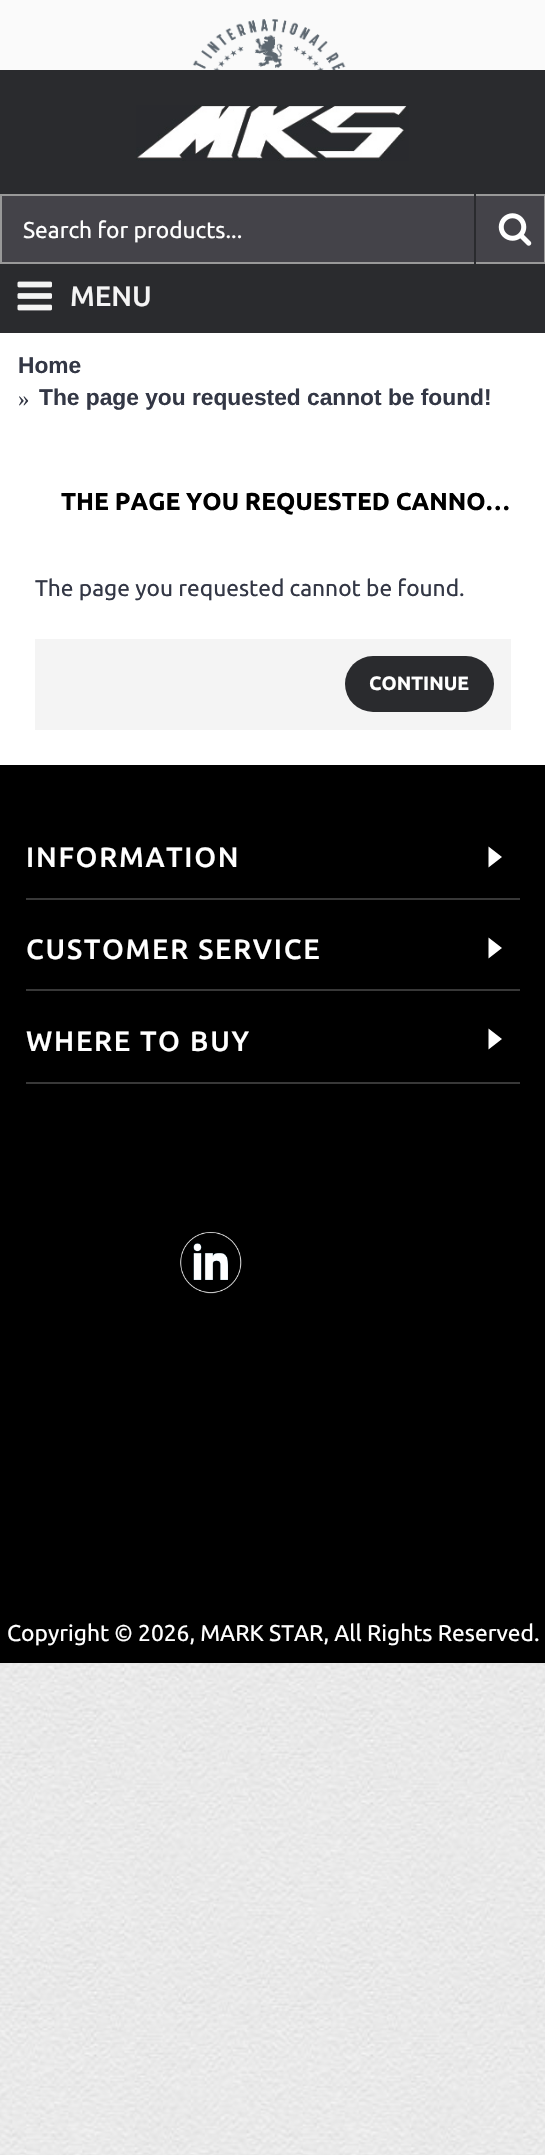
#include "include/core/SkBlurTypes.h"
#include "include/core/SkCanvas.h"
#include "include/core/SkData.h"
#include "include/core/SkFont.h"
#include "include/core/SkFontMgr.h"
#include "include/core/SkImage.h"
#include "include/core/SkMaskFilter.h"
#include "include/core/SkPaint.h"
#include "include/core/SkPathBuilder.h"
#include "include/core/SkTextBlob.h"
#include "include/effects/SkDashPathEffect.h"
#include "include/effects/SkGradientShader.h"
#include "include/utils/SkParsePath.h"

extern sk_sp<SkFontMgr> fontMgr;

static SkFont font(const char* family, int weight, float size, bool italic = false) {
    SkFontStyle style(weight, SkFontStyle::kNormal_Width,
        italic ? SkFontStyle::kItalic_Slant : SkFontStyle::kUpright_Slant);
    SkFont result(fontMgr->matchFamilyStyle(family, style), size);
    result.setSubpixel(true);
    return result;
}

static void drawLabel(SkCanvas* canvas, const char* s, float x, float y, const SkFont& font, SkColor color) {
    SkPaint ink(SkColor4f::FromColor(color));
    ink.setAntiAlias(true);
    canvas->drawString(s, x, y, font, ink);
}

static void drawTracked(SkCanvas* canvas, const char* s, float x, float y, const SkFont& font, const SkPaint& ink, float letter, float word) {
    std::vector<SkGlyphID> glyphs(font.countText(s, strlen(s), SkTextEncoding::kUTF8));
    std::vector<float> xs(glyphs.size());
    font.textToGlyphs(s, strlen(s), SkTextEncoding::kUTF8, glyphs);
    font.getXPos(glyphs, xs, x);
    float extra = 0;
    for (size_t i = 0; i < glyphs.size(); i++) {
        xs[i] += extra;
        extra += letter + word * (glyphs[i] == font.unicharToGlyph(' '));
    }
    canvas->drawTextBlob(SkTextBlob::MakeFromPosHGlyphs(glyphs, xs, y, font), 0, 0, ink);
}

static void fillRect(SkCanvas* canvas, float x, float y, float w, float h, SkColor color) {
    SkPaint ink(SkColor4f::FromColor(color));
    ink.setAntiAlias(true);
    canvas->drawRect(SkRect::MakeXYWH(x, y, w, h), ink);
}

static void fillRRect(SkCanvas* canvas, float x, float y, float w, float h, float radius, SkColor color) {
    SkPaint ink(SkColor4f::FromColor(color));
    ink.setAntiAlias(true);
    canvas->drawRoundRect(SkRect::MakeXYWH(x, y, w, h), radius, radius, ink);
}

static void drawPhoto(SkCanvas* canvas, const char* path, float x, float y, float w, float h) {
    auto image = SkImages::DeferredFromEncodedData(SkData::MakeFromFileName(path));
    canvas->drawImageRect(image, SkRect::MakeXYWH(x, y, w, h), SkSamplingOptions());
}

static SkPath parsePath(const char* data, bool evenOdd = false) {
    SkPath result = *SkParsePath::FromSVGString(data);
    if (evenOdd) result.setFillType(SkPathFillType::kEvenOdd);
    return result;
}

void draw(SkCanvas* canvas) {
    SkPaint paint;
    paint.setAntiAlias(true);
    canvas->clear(0xFFFFFFFF);
    drawPhoto(canvas, "assets/img1.png", 0, 1663, 545, 492);
    fillRect(canvas, 0, 70, 545, 263, 0xFF2A2B2E);
    fillRect(canvas, 0, 0, 545, 70, 0xFFFAFAFA);
    drawPhoto(canvas, "assets/img2.png", 192, 19, 154, 51);
    drawPhoto(canvas, "assets/img3.png", 136, 105, 273, 56);
    paint.setColor(0xFF444349);
    canvas->drawRect(SkRect::MakeXYWH(1, 195, 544, 68), paint);
    paint.setStroke(true);
    paint.setStrokeWidth(2);
    paint.setColor(0xFF999999);
    canvas->drawRect(SkRect::MakeXYWH(1, 195, 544, 68), paint);
    SkFont font1 = font("Ubuntu", 400, 22.75f);
    drawLabel(canvas, "Search for products...", 23, 238, font1, 0xFFFFFFFF);
    fillRect(canvas, 474, 194, 2, 70, 0xFF2A2B2E);
    drawPhoto(canvas, "assets/img4.png", 498, 213, 34, 33);
    drawPhoto(canvas, "assets/img5.png", 17, 281, 35, 30);
    SkFont font2 = font("Ubuntu", 500, 28);
    drawLabel(canvas, "MENU", 70, 306, font2, 0xFFF4F4F4);
    SkFont font3 = font("Liberation Sans", 700, 22.75f);
    drawLabel(canvas, "Home", 18, 373, font3, 0xFF333745);
    SkFont font4 = font("Liberation Serif", 400, 22.75f);
    drawLabel(canvas, "»", 18, 406, font4, 0xFF333745);
    drawLabel(canvas, "The page you requested cannot be found!", 39, 405, font3, 0xFF333745);
    SkFont font5 = font("Ubuntu", 700, 24.5f);
    drawLabel(canvas, "THE PAGE YOU REQUESTED CANNO…", 61, 510, font5, 0xFF000000);
    drawLabel(canvas, "The page you requested cannot be found.", 35, 596, font1, 0xFF333745);
    fillRect(canvas, 35, 639, 476, 91, 0xFFF4F4F4);
    fillRRect(canvas, 345, 656, 149, 56, 28, 0xFF2A2B2E);
    SkFont font6 = font("Ubuntu", 700, 19.25f);
    drawLabel(canvas, "CONTINUE", 369, 690, font6, 0xFFFFFFFF);
    fillRect(canvas, 0, 765, 545, 898, 0xFF000000);
    fillRect(canvas, 26, 898, 494, 2, 0xFF383838);
    paint.setStroke(false);
    paint.setColor(0xFFFFFFFF);
    drawTracked(canvas, "INFORMATION", 26, 867, font2, paint, 1.75f, 0);
    canvas->drawPath(parsePath("M488.5 846.5V867.5L502 857Z"), paint);
    fillRect(canvas, 26, 989, 494, 2, 0xFF383838);
    drawTracked(canvas, "CUSTOMER SERVICE", 26, 959, font2, paint, 1.75f, 0);
    canvas->drawPath(parsePath("M488.5 937.5V958.5L502 948Z"), paint);
    fillRect(canvas, 26, 1082, 494, 2, 0xFF383838);
    drawTracked(canvas, "WHERE TO BUY", 26, 1051, font2, paint, 1.75f, 0);
    canvas->drawPath(parsePath("M488.5 1028.5V1049.5L502 1039Z"), paint);
    drawPhoto(canvas, "assets/img6.png", 180, 1232, 62, 62);
    drawLabel(canvas, "Copyright © 2026, MARK STAR, All Rights Reserved.", 7, 1641, font1, 0xFFFFFFFF);
}
